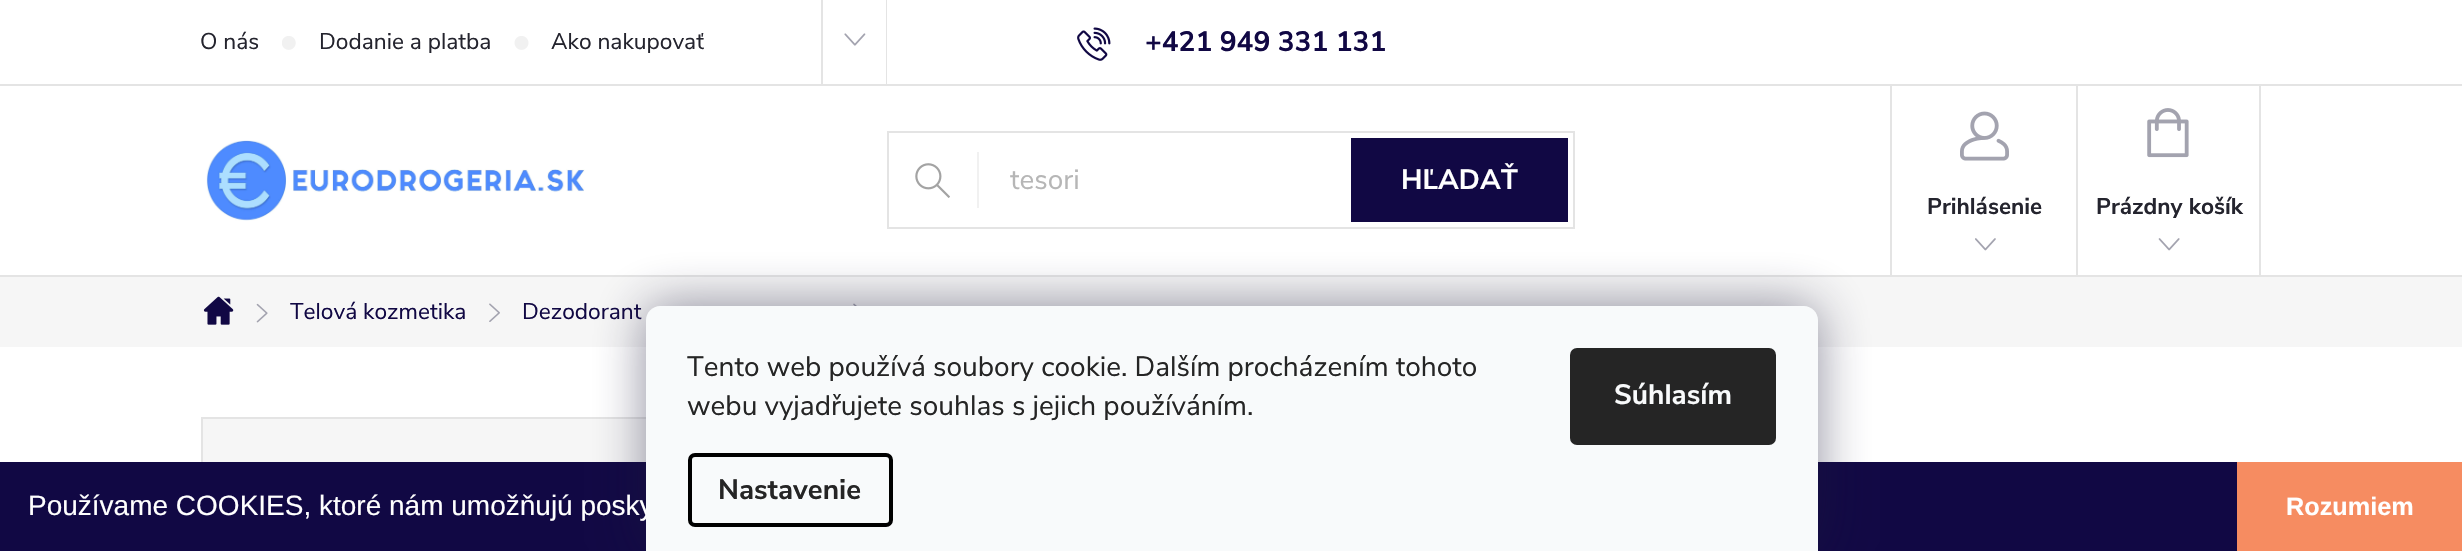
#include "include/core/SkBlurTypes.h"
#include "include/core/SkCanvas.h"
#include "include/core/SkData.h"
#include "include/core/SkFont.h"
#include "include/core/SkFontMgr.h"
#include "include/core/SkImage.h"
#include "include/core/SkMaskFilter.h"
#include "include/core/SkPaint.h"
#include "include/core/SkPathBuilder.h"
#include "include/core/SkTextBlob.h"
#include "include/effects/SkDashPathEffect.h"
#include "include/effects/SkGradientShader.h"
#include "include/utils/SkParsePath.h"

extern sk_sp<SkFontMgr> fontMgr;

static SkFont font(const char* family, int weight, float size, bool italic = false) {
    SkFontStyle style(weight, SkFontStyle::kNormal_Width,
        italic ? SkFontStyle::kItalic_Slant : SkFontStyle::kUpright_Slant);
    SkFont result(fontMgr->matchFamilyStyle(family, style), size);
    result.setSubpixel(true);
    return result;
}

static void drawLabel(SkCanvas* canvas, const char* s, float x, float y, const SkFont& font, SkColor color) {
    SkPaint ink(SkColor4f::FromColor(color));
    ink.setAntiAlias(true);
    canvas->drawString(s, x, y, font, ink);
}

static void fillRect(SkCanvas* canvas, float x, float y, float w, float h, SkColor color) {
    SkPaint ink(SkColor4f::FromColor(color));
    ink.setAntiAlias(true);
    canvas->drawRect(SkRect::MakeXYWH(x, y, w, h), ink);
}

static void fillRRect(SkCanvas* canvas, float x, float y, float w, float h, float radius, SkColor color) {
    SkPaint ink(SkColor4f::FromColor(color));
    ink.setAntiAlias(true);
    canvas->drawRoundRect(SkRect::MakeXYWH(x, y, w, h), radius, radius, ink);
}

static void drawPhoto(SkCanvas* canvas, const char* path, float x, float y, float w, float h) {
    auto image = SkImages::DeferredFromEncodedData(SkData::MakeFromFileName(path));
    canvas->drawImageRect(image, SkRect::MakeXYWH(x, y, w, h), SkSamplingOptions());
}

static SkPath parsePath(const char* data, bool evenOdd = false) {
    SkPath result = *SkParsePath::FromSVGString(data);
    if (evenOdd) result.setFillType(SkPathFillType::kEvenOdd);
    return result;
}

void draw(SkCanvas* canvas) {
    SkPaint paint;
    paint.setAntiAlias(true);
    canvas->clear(0xFFFFFFFF);
    fillRect(canvas, 0, 84, 2462, 2, 0xFFE4E4E4);
    SkFont font1 = font("Nunito Sans", 400, 22.75f);
    drawLabel(canvas, "O nás", 200, 49, font1, 0xFF24242E);
    drawPhoto(canvas, "assets/img1.png", 282, 36, 14, 14);
    drawLabel(canvas, "Dodanie a platba", 319, 49, font1, 0xFF24242E);
    drawPhoto(canvas, "assets/img2.png", 514, 36, 15, 14);
    drawLabel(canvas, "Ako nakupovať", 551, 49, font1, 0xFF24242E);
    fillRect(canvas, 886, 0, 1, 84, 0xFFE4E4E4);
    fillRect(canvas, 821, 0, 2, 84, 0xFFE4E4E4);
    drawPhoto(canvas, "assets/img3.png", 844, 33, 22, 13);
    drawPhoto(canvas, "assets/img4.png", 1077, 27, 34, 34);
    SkFont font2 = font("Nunito Sans", 700, 28);
    drawLabel(canvas, "+421 949 331 131", 1145, 51, font2, 0xFF110844);
    fillRect(canvas, 0, 275, 2462, 2, 0xFFE4E4E4);
    drawPhoto(canvas, "assets/img5.png", 206, 140, 379, 81);
    paint.setStroke(true);
    paint.setStrokeWidth(2);
    paint.setColor(0xFFE4E4E4);
    canvas->drawRect(SkRect::MakeXYWH(888, 132, 686, 96), paint);
    fillRect(canvas, 977, 152, 2, 56, 0xFFF1F1F1);
    drawPhoto(canvas, "assets/img6.png", 915, 163, 35, 35);
    SkFont font3 = font("Nunito Sans", 400, 28);
    drawLabel(canvas, "tesori", 1010, 189, font3, 0xFFB6B6B6);
    fillRect(canvas, 1351, 138, 217, 84, 0xFF110844);
    drawLabel(canvas, "HĽADAŤ", 1401, 189, font2, 0xFFFFFFFF);
    fillRect(canvas, 1890, 86, 2, 189, 0xFFE4E4E4);
    drawPhoto(canvas, "assets/img7.png", 1960, 111, 49, 50);
    SkFont font4 = font("Nunito Sans", 700, 22.75f);
    drawLabel(canvas, "Prihlásenie", 1927, 214, font4, 0xFF24242E);
    drawPhoto(canvas, "assets/img8.png", 1975, 238, 21, 13);
    fillRect(canvas, 2259, 86, 2, 189, 0xFFE4E4E4);
    fillRect(canvas, 2076, 86, 2, 189, 0xFFE4E4E4);
    drawPhoto(canvas, "assets/img9.png", 2147, 108, 42, 50);
    drawLabel(canvas, "Prázdny košík", 2096, 214, font4, 0xFF24242E);
    drawPhoto(canvas, "assets/img10.png", 2158, 238, 22, 13);
    fillRect(canvas, 0, 277, 2462, 70, 0xFFF6F6F6);
    drawPhoto(canvas, "assets/img11.png", 203, 296, 31, 29);
    drawPhoto(canvas, "assets/img12.png", 256, 303, 12, 20);
    drawLabel(canvas, "Telová kozmetika", 290, 319, font1, 0xFF110844);
    drawPhoto(canvas, "assets/img13.png", 489, 303, 11, 19);
    drawLabel(canvas, "Dezodorant", 522, 319, font1, 0xFF110844);
    drawPhoto(canvas, "assets/img14.png", 853, 303, 4, 3);
    fillRect(canvas, 203, 419, 443, 43, 0xFFF6F6F6);
    canvas->drawRect(SkRect::MakeXYWH(202, 418, 522, 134), paint);
    fillRect(canvas, 0, 462, 2237, 89, 0xFF110844);
    paint.setStroke(false);
    paint.setColor(0x801B1939);
    paint.setMaskFilter(SkMaskFilter::MakeBlur(kNormal_SkBlurStyle, 26));
    canvas->drawRoundRect(SkRect::MakeXYWH(646, 306, 1172, 245), 14, 14, paint);
    paint.setMaskFilter(nullptr);
    SkFont font5 = font("Liberation Sans", 400, 28);
    drawLabel(canvas, "Používame COOKIES, ktoré nám umožňujú posky", 28, 515, font5, 0xFFFFFFFF);
    paint.setColor(0xFFF8FAFB);
    canvas->drawPath(parsePath("M660 306H1804C1811.5 306 1818 312.5 1818 320V551H646V320C646 312.5 652.5 306 660 306Z"), paint);
    drawLabel(canvas, "Tento web používá soubory cookie. Dalším procházením tohoto", 687, 376, font3, 0xFF252525);
    drawLabel(canvas, "webu vyjadřujete souhlas s jejich používáním.", 687, 415, font3, 0xFF252525);
    paint.setStroke(true);
    paint.setStrokeWidth(4);
    paint.setColor(0xFF000000);
    canvas->drawRoundRect(SkRect::MakeXYWH(690, 455, 201, 70), 5, 5, paint);
    drawLabel(canvas, "Nastavenie", 718, 499, font2, 0xFF252525);
    fillRRect(canvas, 1570, 348, 206, 97, 7, 0xFF252525);
    drawLabel(canvas, "Súhlasím", 1614, 404, font2, 0xFFF8FAFB);
    fillRect(canvas, 2237, 462, 225, 89, 0xFFF68C61);
    SkFont font6 = font("Liberation Sans", 700, 25.25f);
    drawLabel(canvas, "Rozumiem", 2286, 515, font6, 0xFFFFFFFF);
}
